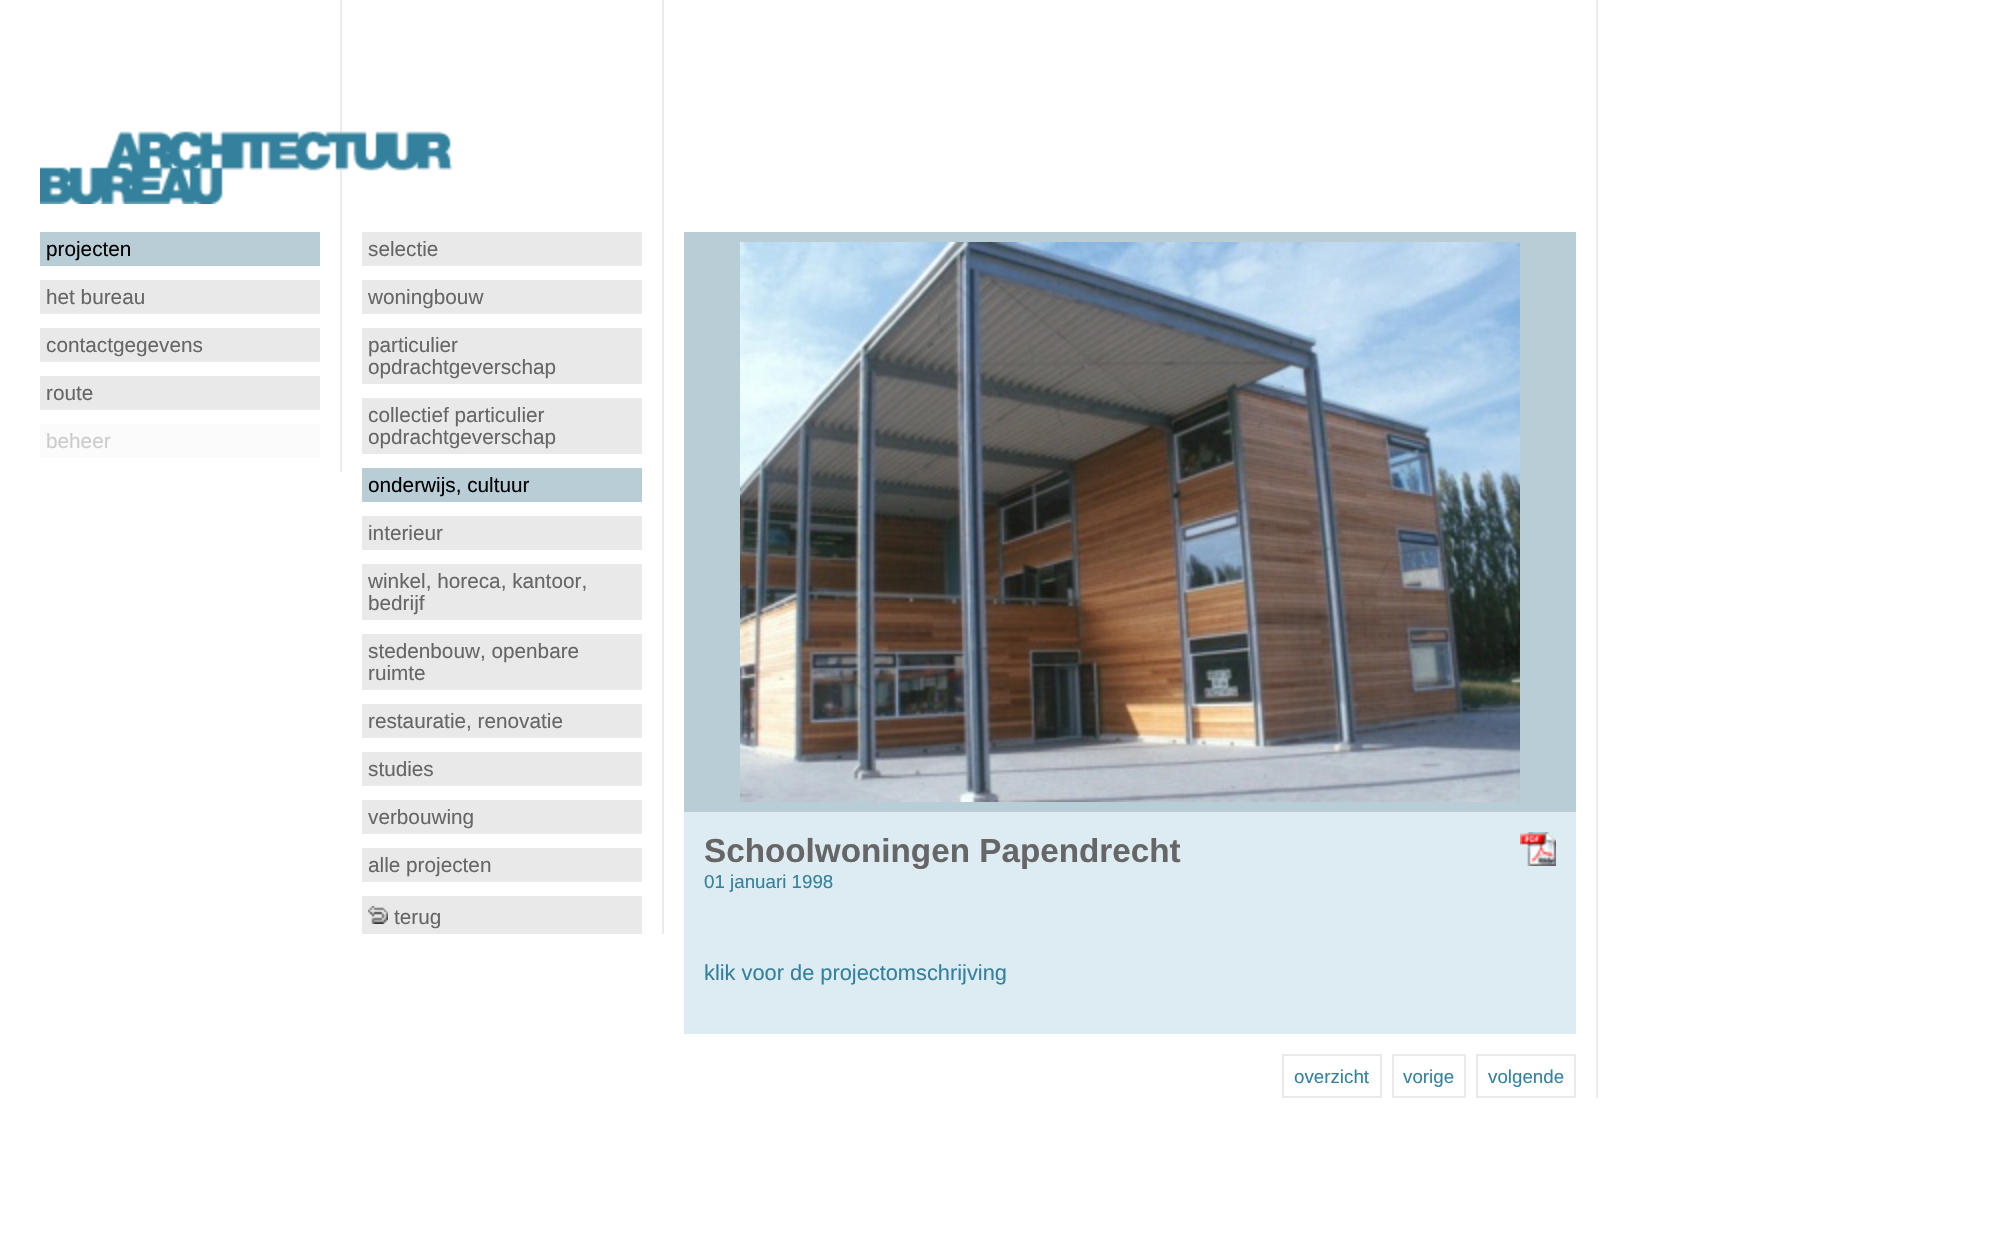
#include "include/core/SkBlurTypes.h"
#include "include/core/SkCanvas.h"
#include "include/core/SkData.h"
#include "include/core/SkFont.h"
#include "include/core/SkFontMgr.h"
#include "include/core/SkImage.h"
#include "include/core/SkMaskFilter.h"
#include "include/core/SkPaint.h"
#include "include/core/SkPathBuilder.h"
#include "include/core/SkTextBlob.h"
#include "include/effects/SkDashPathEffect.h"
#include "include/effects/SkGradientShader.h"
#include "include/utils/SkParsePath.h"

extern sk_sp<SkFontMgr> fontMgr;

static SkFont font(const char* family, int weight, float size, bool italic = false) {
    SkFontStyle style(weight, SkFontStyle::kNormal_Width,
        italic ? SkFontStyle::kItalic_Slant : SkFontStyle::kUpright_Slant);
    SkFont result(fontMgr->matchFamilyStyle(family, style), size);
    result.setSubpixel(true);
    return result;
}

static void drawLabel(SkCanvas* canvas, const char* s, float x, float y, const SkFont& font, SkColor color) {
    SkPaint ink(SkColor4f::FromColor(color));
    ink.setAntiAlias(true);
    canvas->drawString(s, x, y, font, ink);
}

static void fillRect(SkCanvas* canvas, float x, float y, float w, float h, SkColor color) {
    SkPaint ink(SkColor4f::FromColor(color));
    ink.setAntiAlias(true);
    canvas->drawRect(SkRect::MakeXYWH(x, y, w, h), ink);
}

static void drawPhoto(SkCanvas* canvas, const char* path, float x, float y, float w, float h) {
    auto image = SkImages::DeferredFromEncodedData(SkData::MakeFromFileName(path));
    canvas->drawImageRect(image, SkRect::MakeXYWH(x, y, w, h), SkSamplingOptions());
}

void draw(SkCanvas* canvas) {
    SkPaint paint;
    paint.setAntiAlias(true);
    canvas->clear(0xFFFFFFFF);
    fillRect(canvas, 340, 0, 2, 472, 0xFFEBEBEB);
    drawPhoto(canvas, "assets/img1.png", 40, 131, 412, 73);
    fillRect(canvas, 40, 232, 280, 34, 0xFFB9CDD7);
    SkFont font1 = font("Liberation Sans", 400, 20.75f);
    drawLabel(canvas, "projecten", 46, 256, font1, 0xFF000000);
    fillRect(canvas, 40, 280, 280, 34, 0xFFE9E9E9);
    drawLabel(canvas, "het bureau", 46, 304, font1, 0xFF666666);
    fillRect(canvas, 40, 328, 280, 34, 0xFFE9E9E9);
    drawLabel(canvas, "contactgegevens", 46, 352, font1, 0xFF666666);
    fillRect(canvas, 40, 376, 280, 34, 0xFFE9E9E9);
    drawLabel(canvas, "route", 46, 400, font1, 0xFF666666);
    fillRect(canvas, 40, 424, 280, 34, 0xFFFBFBFB);
    drawLabel(canvas, "beheer", 46, 448, font1, 0xFFCCCCCC);
    fillRect(canvas, 662, 0, 2, 934, 0xFFEBEBEB);
    fillRect(canvas, 362, 232, 280, 34, 0xFFE9E9E9);
    drawLabel(canvas, "selectie", 368, 256, font1, 0xFF666666);
    fillRect(canvas, 362, 280, 280, 34, 0xFFE9E9E9);
    drawLabel(canvas, "woningbouw", 368, 304, font1, 0xFF666666);
    fillRect(canvas, 362, 328, 280, 56, 0xFFE9E9E9);
    drawLabel(canvas, "particulier", 368, 352, font1, 0xFF666666);
    drawLabel(canvas, "opdrachtgeverschap", 368, 374, font1, 0xFF666666);
    fillRect(canvas, 362, 398, 280, 56, 0xFFE9E9E9);
    drawLabel(canvas, "collectief particulier", 368, 422, font1, 0xFF666666);
    drawLabel(canvas, "opdrachtgeverschap", 368, 444, font1, 0xFF666666);
    fillRect(canvas, 362, 468, 280, 34, 0xFFB9CDD7);
    drawLabel(canvas, "onderwijs, cultuur", 368, 492, font1, 0xFF000000);
    fillRect(canvas, 362, 516, 280, 34, 0xFFE9E9E9);
    drawLabel(canvas, "interieur", 368, 540, font1, 0xFF666666);
    fillRect(canvas, 362, 564, 280, 56, 0xFFE9E9E9);
    drawLabel(canvas, "winkel, horeca, kantoor,", 368, 588, font1, 0xFF666666);
    drawLabel(canvas, "bedrijf", 368, 610, font1, 0xFF666666);
    fillRect(canvas, 362, 634, 280, 56, 0xFFE9E9E9);
    drawLabel(canvas, "stedenbouw, openbare", 368, 658, font1, 0xFF666666);
    drawLabel(canvas, "ruimte", 368, 680, font1, 0xFF666666);
    fillRect(canvas, 362, 704, 280, 34, 0xFFE9E9E9);
    drawLabel(canvas, "restauratie, renovatie", 368, 728, font1, 0xFF666666);
    fillRect(canvas, 362, 752, 280, 34, 0xFFE9E9E9);
    drawLabel(canvas, "studies", 368, 776, font1, 0xFF666666);
    fillRect(canvas, 362, 800, 280, 34, 0xFFE9E9E9);
    drawLabel(canvas, "verbouwing", 368, 824, font1, 0xFF666666);
    fillRect(canvas, 362, 848, 280, 34, 0xFFE9E9E9);
    drawLabel(canvas, "alle projecten", 368, 872, font1, 0xFF666666);
    fillRect(canvas, 362, 896, 280, 38, 0xFFE9E9E9);
    drawPhoto(canvas, "assets/img2.png", 368, 906, 20, 18);
    drawLabel(canvas, "terug", 394, 924, font1, 0xFF666666);
    fillRect(canvas, 1596, 0, 2, 1098, 0xFFEBEBEB);
    fillRect(canvas, 684, 232, 892, 580, 0xFFB9CDD7);
    drawPhoto(canvas, "assets/img3.png", 740, 242, 780, 560);
    fillRect(canvas, 684, 812, 892, 222, 0xFFDDEBF2);
    SkFont font2 = font("Liberation Sans", 700, 33.25f);
    drawLabel(canvas, "Schoolwoningen Papendrecht", 704, 862, font2, 0xFF666666);
    drawPhoto(canvas, "assets/img4.png", 1520, 832, 36, 34);
    SkFont font3 = font("Liberation Sans", 400, 18.75f);
    drawLabel(canvas, "01 januari 1998", 704, 888, font3, 0xFF33819D);
    SkFont font4 = font("Liberation Sans", 400, 21.8f);
    drawLabel(canvas, "klik voor de projectomschrijving", 704, 980, font4, 0xFF33819D);
    paint.setStroke(true);
    paint.setStrokeWidth(2);
    paint.setColor(0xFFE9E9E9);
    canvas->drawRect(SkRect::MakeXYWH(1283, 1055, 98, 42), paint);
    drawLabel(canvas, "overzicht", 1294, 1083, font3, 0xFF33819D);
    canvas->drawRect(SkRect::MakeXYWH(1393, 1055, 72, 42), paint);
    drawLabel(canvas, "vorige", 1403, 1083, font3, 0xFF33819D);
    canvas->drawRect(SkRect::MakeXYWH(1477, 1055, 98, 42), paint);
    drawLabel(canvas, "volgende", 1488, 1083, font3, 0xFF33819D);
}
